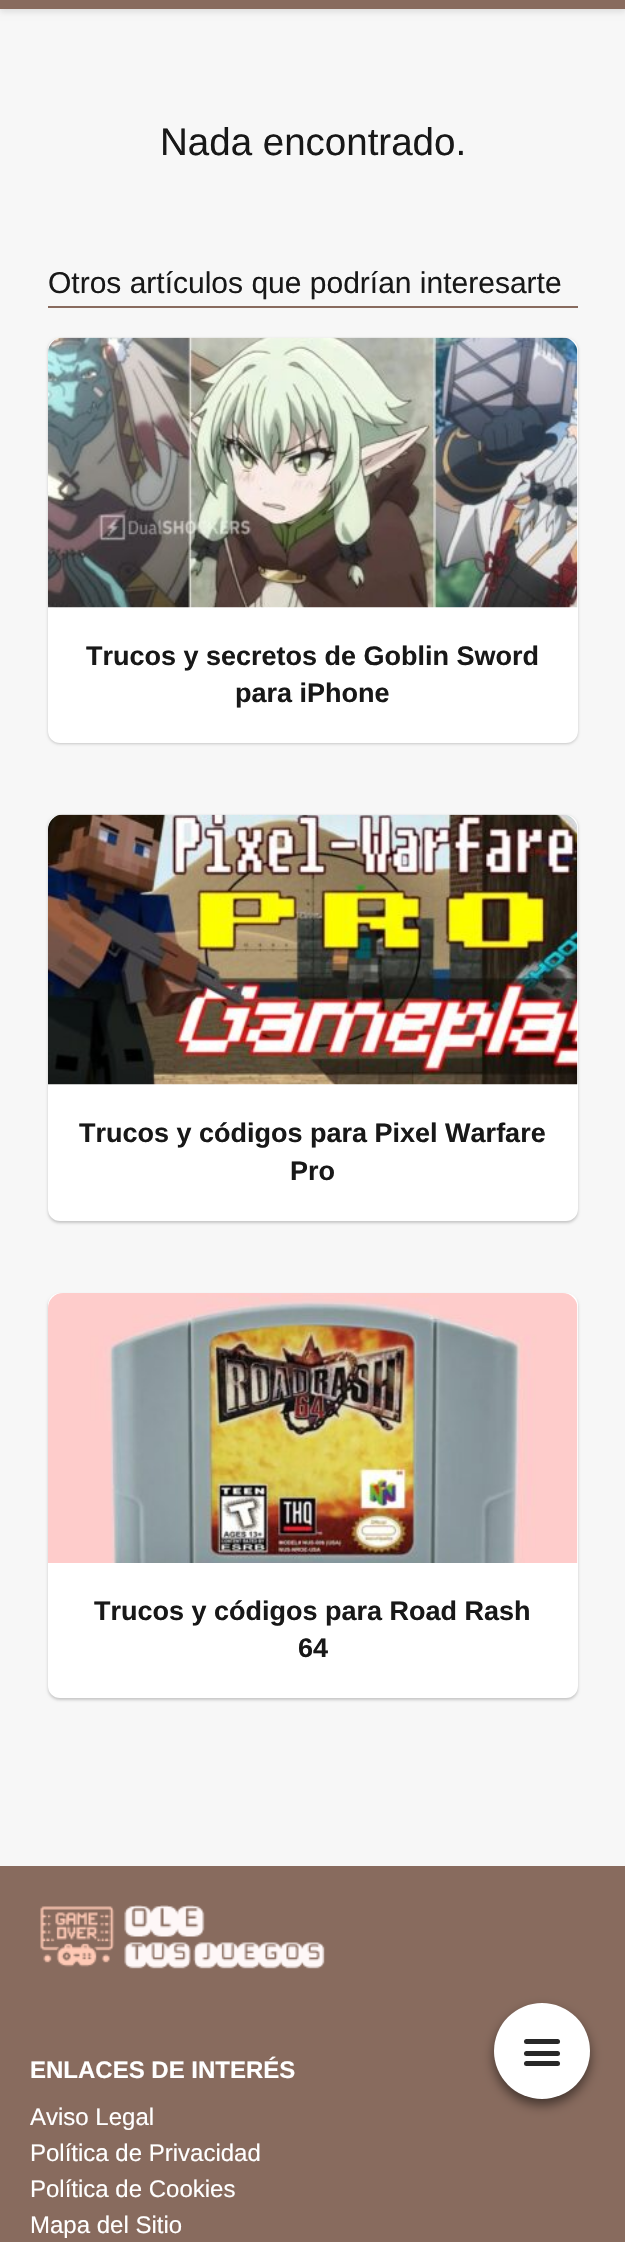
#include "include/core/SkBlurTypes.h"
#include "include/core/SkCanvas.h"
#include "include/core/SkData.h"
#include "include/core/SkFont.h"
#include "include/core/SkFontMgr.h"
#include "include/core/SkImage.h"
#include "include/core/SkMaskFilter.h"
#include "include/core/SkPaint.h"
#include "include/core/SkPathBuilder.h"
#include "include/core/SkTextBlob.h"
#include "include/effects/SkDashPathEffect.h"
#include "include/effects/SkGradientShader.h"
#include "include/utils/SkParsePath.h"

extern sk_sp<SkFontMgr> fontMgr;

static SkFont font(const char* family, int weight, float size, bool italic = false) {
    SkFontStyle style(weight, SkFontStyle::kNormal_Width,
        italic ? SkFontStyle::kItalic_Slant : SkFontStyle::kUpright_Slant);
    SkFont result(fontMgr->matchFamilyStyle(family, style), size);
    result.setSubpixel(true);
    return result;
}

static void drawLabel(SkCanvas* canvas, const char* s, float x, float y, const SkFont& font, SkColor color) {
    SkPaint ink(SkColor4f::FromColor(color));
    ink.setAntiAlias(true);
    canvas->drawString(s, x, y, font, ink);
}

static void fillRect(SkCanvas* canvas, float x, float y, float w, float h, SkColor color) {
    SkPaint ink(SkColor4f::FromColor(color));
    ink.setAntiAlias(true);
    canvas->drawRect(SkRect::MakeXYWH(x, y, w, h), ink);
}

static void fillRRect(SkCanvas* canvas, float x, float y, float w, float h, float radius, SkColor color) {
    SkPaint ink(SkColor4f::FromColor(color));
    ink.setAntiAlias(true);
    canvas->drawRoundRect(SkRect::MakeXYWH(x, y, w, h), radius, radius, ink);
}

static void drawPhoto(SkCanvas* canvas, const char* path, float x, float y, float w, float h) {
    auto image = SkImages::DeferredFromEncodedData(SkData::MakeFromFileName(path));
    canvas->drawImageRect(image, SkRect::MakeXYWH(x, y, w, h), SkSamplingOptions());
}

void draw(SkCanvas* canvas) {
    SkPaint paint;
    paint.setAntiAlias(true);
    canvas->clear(0xFFF7F7F7);
    paint.setColor(0x1A000000);
    paint.setMaskFilter(SkMaskFilter::MakeBlur(kNormal_SkBlurStyle, 3));
    canvas->drawRect(SkRect::MakeXYWH(0, -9, 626, 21), paint);
    paint.setMaskFilter(nullptr);
    fillRect(canvas, 0, 0, 625, 9, 0xFF886B5E);
    fillRect(canvas, 0, 1866, 625, 376, 0xFF886B5E);
    paint.setColor(0x80000000);
    paint.setMaskFilter(SkMaskFilter::MakeBlur(kNormal_SkBlurStyle, 6));
    canvas->drawRoundRect(SkRect::MakeXYWH(494, 2009, 96, 96), 48, 48, paint);
    paint.setMaskFilter(nullptr);
    paint.setColor(0xFFFFFFFF);
    canvas->drawCircle(542, 2051, 48, paint);
    fillRRect(canvas, 524, 2039, 36, 5, 2.5f, 0xFF282828);
    fillRRect(canvas, 524, 2051, 36, 5, 2.5f, 0xFF282828);
    fillRRect(canvas, 524, 2061, 36, 5, 2.5f, 0xFF282828);
    SkFont font1 = font("Liberation Sans", 400, 38.5f);
    drawLabel(canvas, "Nada encontrado.", 160, 155, font1, 0xFF181818);
    fillRect(canvas, 48, 306, 530, 2, 0xFF886B5E);
    SkFont font2 = font("Liberation Sans", 400, 30);
    drawLabel(canvas, "Otros artículos que podrían interesarte", 48, 293, font2, 0xFF181818);
    paint.setColor(0x33000000);
    paint.setMaskFilter(SkMaskFilter::MakeBlur(kNormal_SkBlurStyle, 1.5f));
    canvas->drawRoundRect(SkRect::MakeXYWH(48, 339, 530, 405), 12, 12, paint);
    paint.setMaskFilter(nullptr);
    fillRRect(canvas, 48, 338, 530, 405, 12, 0xFFFFFFFF);
    drawPhoto(canvas, "assets/img1.png", 48, 337, 530, 271);
    SkFont font3 = font("Liberation Sans", 700, 27);
    drawLabel(canvas, "Trucos y secretos de Goblin Sword", 86, 665, font3, 0xFF181818);
    drawLabel(canvas, "para iPhone", 235, 702, font3, 0xFF181818);
    paint.setMaskFilter(SkMaskFilter::MakeBlur(kNormal_SkBlurStyle, 1.5f));
    canvas->drawRoundRect(SkRect::MakeXYWH(48, 816, 530, 407), 12, 12, paint);
    paint.setMaskFilter(nullptr);
    fillRRect(canvas, 48, 815, 530, 406, 12, 0xFFFFFFFF);
    drawPhoto(canvas, "assets/img2.png", 48, 814, 530, 271);
    drawLabel(canvas, "Trucos y códigos para Pixel Warfare", 79, 1142, font3, 0xFF181818);
    drawLabel(canvas, "Pro", 290, 1180, font3, 0xFF181818);
    paint.setMaskFilter(SkMaskFilter::MakeBlur(kNormal_SkBlurStyle, 1.5f));
    canvas->drawRoundRect(SkRect::MakeXYWH(48, 1295, 530, 405), 12, 12, paint);
    paint.setMaskFilter(nullptr);
    fillRRect(canvas, 48, 1293, 530, 405, 12, 0xFFFFFFFF);
    drawPhoto(canvas, "assets/img3.png", 48, 1293, 530, 270);
    drawLabel(canvas, "Trucos y códigos para Road Rash", 94, 1620, font3, 0xFF181818);
    drawLabel(canvas, "64", 298, 1657, font3, 0xFF181818);
    drawPhoto(canvas, "assets/img4.png", 40, 1905, 285, 64);
    SkFont font4 = font("Liberation Sans", 700, 24);
    drawLabel(canvas, "ENLACES DE INTERÉS", 30, 2078, font4, 0xFFFFFFFF);
    SkFont font5 = font("Liberation Sans", 400, 24);
    drawLabel(canvas, "Aviso Legal", 30, 2125, font5, 0xFFFFFFFF);
    drawLabel(canvas, "Política de Privacidad", 30, 2161, font5, 0xFFFFFFFF);
    drawLabel(canvas, "Política de Cookies", 30, 2197, font5, 0xFFFFFFFF);
    drawLabel(canvas, "Mapa del Sitio", 30, 2233, font5, 0xFFFFFFFF);
}
